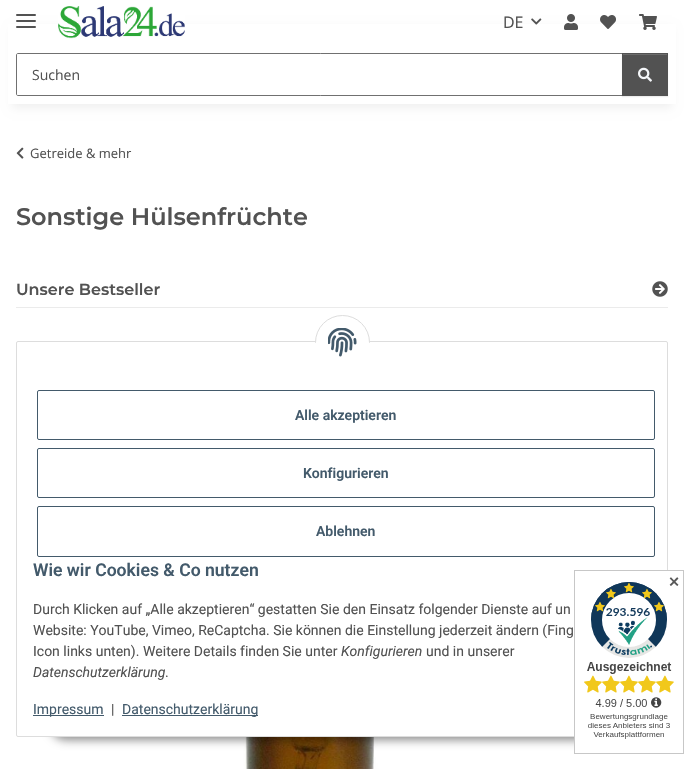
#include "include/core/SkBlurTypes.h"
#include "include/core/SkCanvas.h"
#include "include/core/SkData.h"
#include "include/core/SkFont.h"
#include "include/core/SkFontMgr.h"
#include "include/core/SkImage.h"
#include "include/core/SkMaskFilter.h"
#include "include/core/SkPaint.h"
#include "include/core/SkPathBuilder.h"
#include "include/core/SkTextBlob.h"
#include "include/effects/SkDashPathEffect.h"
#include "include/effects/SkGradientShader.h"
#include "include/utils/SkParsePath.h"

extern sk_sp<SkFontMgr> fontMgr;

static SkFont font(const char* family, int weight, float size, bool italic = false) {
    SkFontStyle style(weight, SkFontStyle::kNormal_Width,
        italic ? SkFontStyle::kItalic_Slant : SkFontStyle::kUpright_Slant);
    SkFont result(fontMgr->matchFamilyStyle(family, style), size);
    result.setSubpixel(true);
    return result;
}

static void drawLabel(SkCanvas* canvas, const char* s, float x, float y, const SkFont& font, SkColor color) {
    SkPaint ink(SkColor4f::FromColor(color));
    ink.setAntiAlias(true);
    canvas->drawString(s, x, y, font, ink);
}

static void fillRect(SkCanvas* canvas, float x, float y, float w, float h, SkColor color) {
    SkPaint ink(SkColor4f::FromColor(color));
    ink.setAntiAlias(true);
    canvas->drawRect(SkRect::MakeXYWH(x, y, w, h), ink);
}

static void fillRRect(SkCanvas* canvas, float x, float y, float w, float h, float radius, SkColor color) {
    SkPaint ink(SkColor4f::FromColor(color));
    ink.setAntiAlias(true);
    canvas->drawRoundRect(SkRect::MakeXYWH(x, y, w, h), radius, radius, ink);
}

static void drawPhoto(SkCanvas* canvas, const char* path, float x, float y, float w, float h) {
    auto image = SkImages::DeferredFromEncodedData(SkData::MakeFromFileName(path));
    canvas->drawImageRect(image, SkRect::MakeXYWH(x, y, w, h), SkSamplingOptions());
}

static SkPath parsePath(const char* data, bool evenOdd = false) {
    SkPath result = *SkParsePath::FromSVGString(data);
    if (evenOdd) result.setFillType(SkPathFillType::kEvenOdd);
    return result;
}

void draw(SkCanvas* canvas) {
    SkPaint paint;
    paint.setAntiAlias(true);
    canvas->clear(0xFFFFFFFF);
    paint.setColor(0x0F000000);
    paint.setMaskFilter(SkMaskFilter::MakeBlur(kNormal_SkBlurStyle, 4.5f));
    canvas->drawRect(SkRect::MakeXYWH(12, 28, 660, 80), paint);
    paint.setMaskFilter(nullptr);
    fillRect(canvas, 8, 24, 668, 80, 0xFFFFFFFF);
    fillRRect(canvas, 16, 20, 20, 2, 1, 0xFF525252);
    fillRRect(canvas, 16, 14, 20, 2, 1, 0xFF525252);
    fillRRect(canvas, 16, 26, 20, 2, 1, 0xFF525252);
    drawPhoto(canvas, "assets/img1.png", 58, 6, 127, 33);
    SkFont font1 = font("Open Sans", 400, 16);
    drawLabel(canvas, "DE", 503, 28, font1, 0xFF525252);
    drawPhoto(canvas, "assets/img2.png", 531, 18, 11, 7);
    drawPhoto(canvas, "assets/img3.png", 564, 14, 14, 16);
    drawPhoto(canvas, "assets/img4.png", 600, 15, 16, 14);
    drawPhoto(canvas, "assets/img5.png", 639, 14, 18, 16);
    paint.setStroke(true);
    paint.setStrokeWidth(1);
    paint.setColor(0xFF707070);
    canvas->drawPath(parsePath("M18 53.5H622.5V95.5H18C17 95.5 16.5 95 16.5 94V55C16.5 54 17 53.5 18 53.5Z"), paint);
    SkFont font2 = font("Open Sans", 400, 14);
    drawLabel(canvas, "Suchen", 32, 80, font2, 0xFF525252);
    paint.setStroke(false);
    paint.setColor(0x12000000);
    paint.setMaskFilter(SkMaskFilter::MakeBlur(kNormal_SkBlurStyle, 0.5f));
    canvas->drawRect(SkRect::MakeXYWH(622, 54, 46, 43), paint);
    paint.setMaskFilter(nullptr);
    fillRect(canvas, 622, 53, 46, 43, 0xFF525252);
    fillRect(canvas, 623, 54, 44, 1, 0xFF6C6C6C);
    drawPhoto(canvas, "assets/img6.png", 638, 67, 14, 15);
    drawPhoto(canvas, "assets/img7.png", 16, 147, 8, 12);
    SkFont font3 = font("Open Sans", 400, 13);
    drawLabel(canvas, "Getreide & mehr", 30, 158, font3, 0xFF525252);
    SkFont font4 = font("Montserrat", 600, 24);
    drawLabel(canvas, "Sonstige Hülsenfrüchte", 16, 225, font4, 0xFF525252);
    fillRect(canvas, 16, 307, 652, 1, 0xFFEBEBEB);
    SkFont font5 = font("Montserrat", 600, 16);
    drawLabel(canvas, "Unsere Bestseller", 16, 295, font5, 0xFF525252);
    drawPhoto(canvas, "assets/img8.png", 652, 281, 16, 16);
    drawPhoto(canvas, "assets/img9.png", 243, 737, 137, 32);
    paint.setColor(0x73000000);
    paint.setMaskFilter(SkMaskFilter::MakeBlur(kNormal_SkBlurStyle, 5));
    canvas->drawRoundRect(SkRect::MakeXYWH(50, 708, 585, 32), 16, 16, paint);
    paint.setMaskFilter(nullptr);
    paint.setColor(0xFFFFFFFF);
    canvas->drawRoundRect(SkRect::MakeXYWH(16.5f, 341.5f, 651, 395), 1.5f, 1.5f, paint);
    paint.setStroke(true);
    paint.setColor(0xFFDDDDDD);
    canvas->drawRoundRect(SkRect::MakeXYWH(16.5f, 341.5f, 651, 395), 1.5f, 1.5f, paint);
    paint.setStroke(false);
    paint.setColor(0xFFFFFFFF);
    canvas->drawCircle(342.5f, 342.5f, 27, paint);
    paint.setStroke(true);
    paint.setColor(0xFFDDDDDD);
    canvas->drawCircle(342.5f, 342.5f, 27, paint);
    fillRect(canvas, 315, 343, 55, 27, 0xFFFFFFFF);
    drawPhoto(canvas, "assets/img10.png", 328, 328, 29, 29);
    paint.setColor(0xFF435A6B);
    canvas->drawRoundRect(SkRect::MakeXYWH(37.5f, 390.5f, 617, 49), 1.5f, 1.5f, paint);
    SkFont font6 = font("Roboto", 600, 14);
    drawLabel(canvas, "Alle akzeptieren", 295, 420, font6, 0xFF435A6B);
    canvas->drawRoundRect(SkRect::MakeXYWH(37.5f, 448.5f, 617, 49), 1.5f, 1.5f, paint);
    drawLabel(canvas, "Konfigurieren", 303, 478, font6, 0xFF435A6B);
    canvas->drawRoundRect(SkRect::MakeXYWH(37.5f, 506.5f, 617, 50), 1.5f, 1.5f, paint);
    drawLabel(canvas, "Ablehnen", 316, 536, font6, 0xFF435A6B);
    SkFont font7 = font("Roboto", 600, 17.6f);
    drawLabel(canvas, "Wie wir Cookies & Co nutzen", 33, 576, font7, 0xFF435A6B);
    SkFont font8 = font("Roboto", 400, 14);
    drawLabel(canvas, "Durch Klicken auf „Alle akzeptieren“ gestatten Sie den Einsatz folgender Dienste auf un", 33, 614, font8, 0xFF525252);
    drawLabel(canvas, "Website: YouTube, Vimeo, ReCaptcha. Sie können die Einstellung jederzeit ändern (Fing", 33, 635, font8, 0xFF525252);
    drawLabel(canvas, "Icon links unten). Weitere Details finden Sie unter", 33, 656, font8, 0xFF525252);
    SkFont font9 = font("Roboto", 400, 14, true);
    drawLabel(canvas, "Konfigurieren", 341, 656, font9, 0xFF525252);
    drawLabel(canvas, "und in unserer", 426, 656, font8, 0xFF525252);
    drawLabel(canvas, "Datenschutzerklärung", 33, 677, font9, 0xFF525252);
    drawLabel(canvas, ".", 165, 677, font8, 0xFF525252);
    fillRect(canvas, 33, 715, 71, 1, 0xFF435A6B);
    drawLabel(canvas, "Impressum", 33, 714, font8, 0xFF435A6B);
    drawLabel(canvas, "|", 111, 714, font8, 0xFF525252);
    fillRect(canvas, 122, 715, 136, 1, 0xFF435A6B);
    drawLabel(canvas, "Datenschutzerklärung", 122, 714, font8, 0xFF435A6B);
    drawPhoto(canvas, "assets/img11.png", 574, 570, 110, 184);
    SkFont font10 = font("DejaVu Sans", 700, 14);
    drawLabel(canvas, "✕", 668, 587, font10, 0xFF595959);
}
